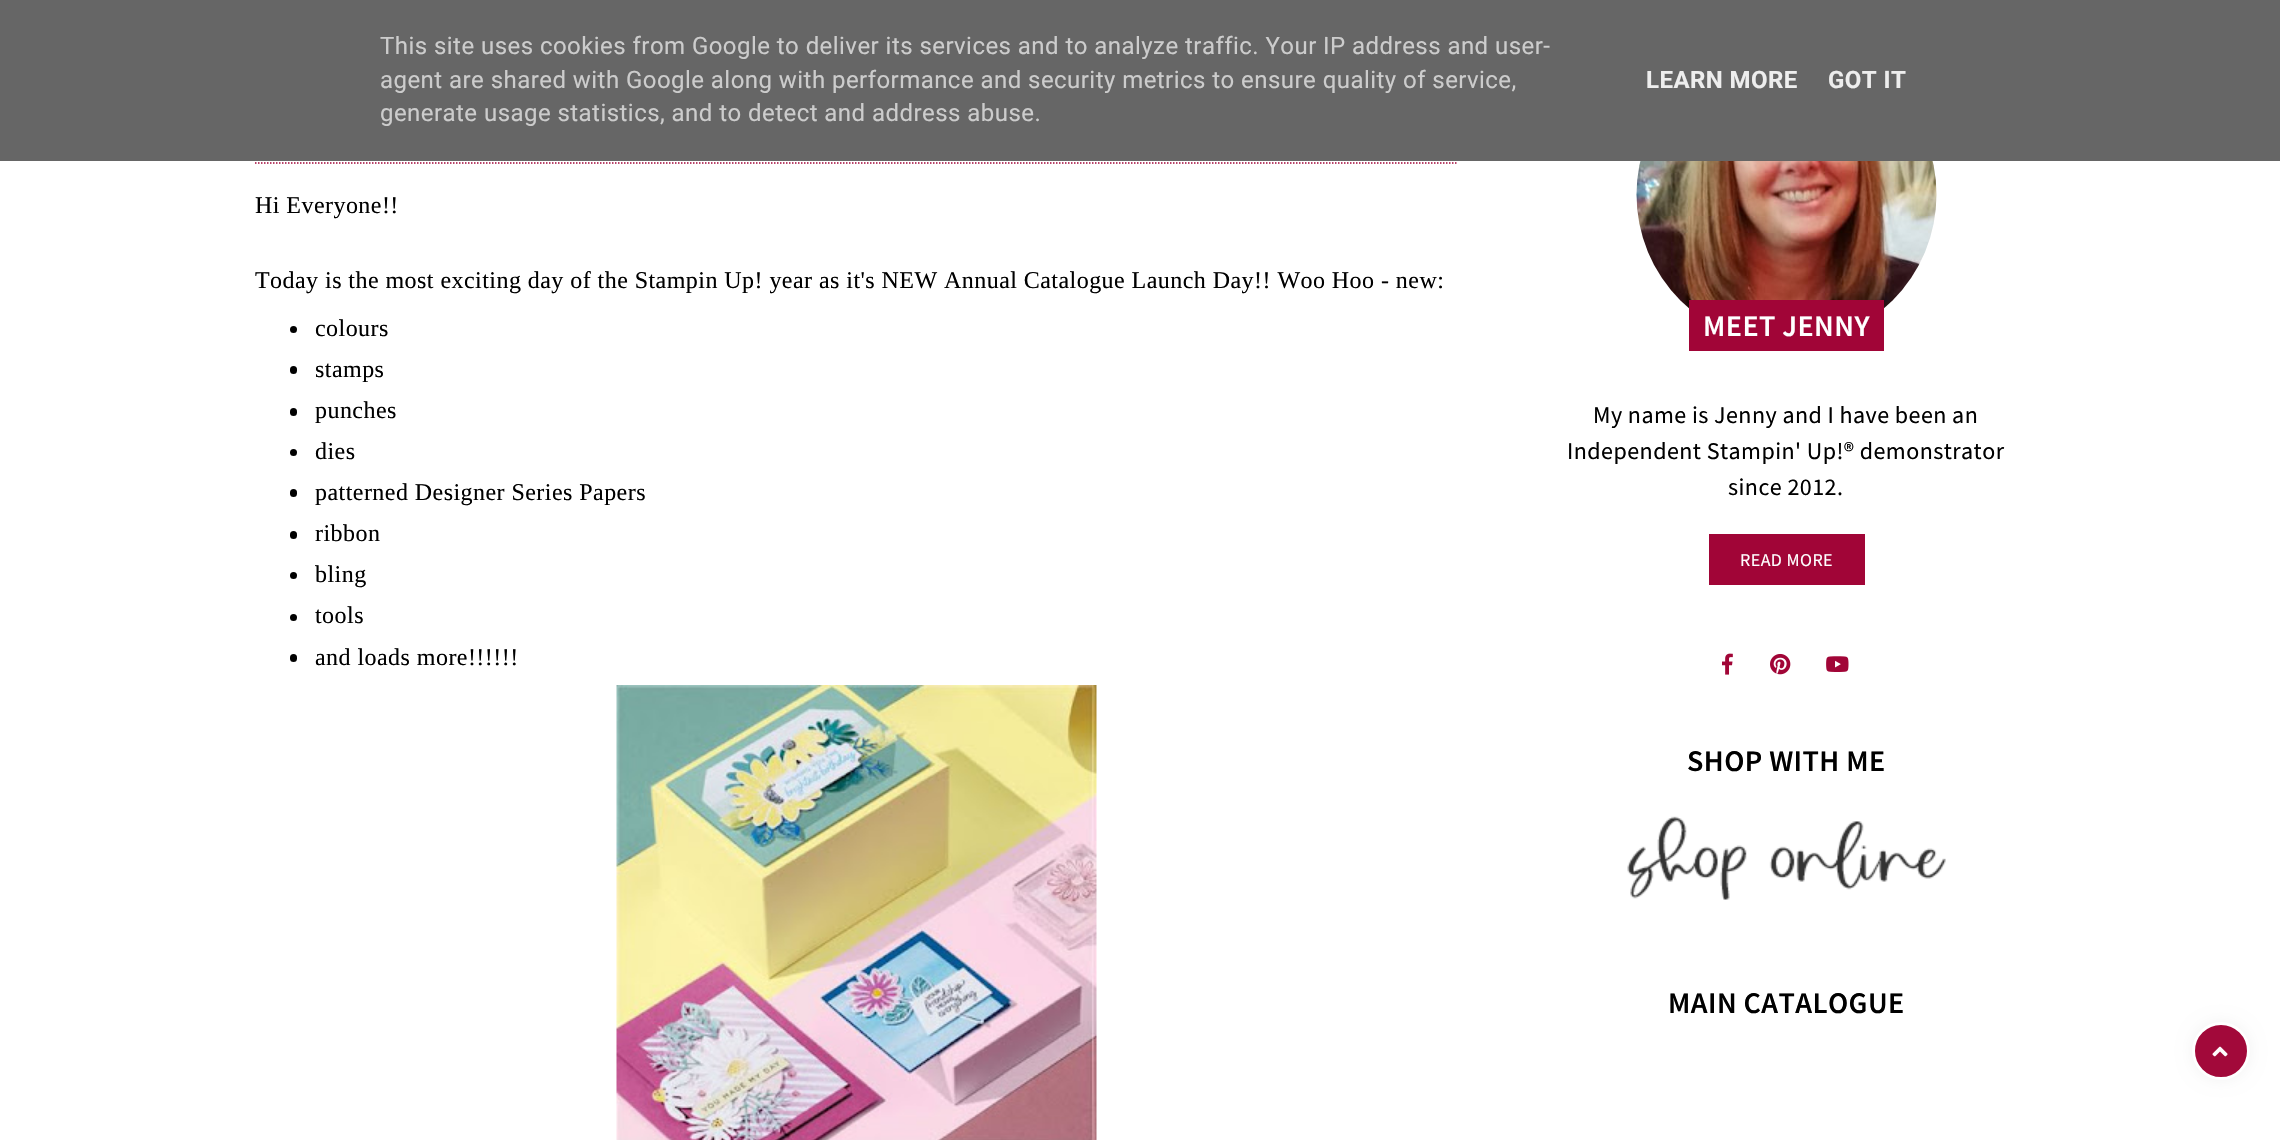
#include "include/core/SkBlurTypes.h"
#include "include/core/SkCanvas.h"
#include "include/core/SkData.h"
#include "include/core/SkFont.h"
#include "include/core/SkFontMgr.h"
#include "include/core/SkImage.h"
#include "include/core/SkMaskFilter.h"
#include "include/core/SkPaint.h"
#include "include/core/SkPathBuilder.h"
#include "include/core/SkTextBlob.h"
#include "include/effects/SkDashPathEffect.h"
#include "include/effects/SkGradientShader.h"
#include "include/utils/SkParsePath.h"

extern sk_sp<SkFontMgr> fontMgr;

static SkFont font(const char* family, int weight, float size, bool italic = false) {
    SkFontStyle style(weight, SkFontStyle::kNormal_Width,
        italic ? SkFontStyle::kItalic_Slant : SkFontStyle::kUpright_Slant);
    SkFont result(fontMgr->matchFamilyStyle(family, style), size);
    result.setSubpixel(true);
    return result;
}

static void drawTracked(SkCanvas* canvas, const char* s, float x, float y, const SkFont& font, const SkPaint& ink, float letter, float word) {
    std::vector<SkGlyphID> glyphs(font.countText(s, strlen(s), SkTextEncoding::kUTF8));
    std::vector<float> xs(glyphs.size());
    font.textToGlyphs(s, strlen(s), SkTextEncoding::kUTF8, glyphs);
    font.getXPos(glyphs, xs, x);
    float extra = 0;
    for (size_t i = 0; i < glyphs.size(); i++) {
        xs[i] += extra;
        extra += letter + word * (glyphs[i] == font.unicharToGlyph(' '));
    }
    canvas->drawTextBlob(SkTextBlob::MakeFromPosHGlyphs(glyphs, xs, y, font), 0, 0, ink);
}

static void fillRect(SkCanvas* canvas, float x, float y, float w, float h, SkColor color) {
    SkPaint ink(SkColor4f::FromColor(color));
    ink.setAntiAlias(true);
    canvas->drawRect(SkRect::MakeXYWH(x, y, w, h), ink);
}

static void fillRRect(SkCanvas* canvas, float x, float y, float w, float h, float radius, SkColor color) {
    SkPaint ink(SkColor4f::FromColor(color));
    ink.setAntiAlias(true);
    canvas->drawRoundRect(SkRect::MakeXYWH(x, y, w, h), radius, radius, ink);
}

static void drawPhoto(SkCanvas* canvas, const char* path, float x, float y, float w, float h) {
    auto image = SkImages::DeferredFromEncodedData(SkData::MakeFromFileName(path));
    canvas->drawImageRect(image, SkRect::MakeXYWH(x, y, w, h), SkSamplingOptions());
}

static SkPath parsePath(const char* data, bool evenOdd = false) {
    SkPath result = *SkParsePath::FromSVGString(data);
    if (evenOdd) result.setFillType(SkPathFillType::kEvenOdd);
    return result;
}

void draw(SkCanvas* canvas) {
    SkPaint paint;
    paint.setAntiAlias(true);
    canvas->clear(0xFFFFFFFF);
    fillRect(canvas, 0, 0, 2280, 161, 0xFF666666);
    SkFont font1 = font("Roboto", 400, 24);
    paint.setColor(0xFFCCCCCC);
    drawTracked(canvas, "This site uses cookies from Google to deliver its services and to analyze traffic. Your IP address and user-", 380, 54, font1, paint, 0.45f, 0);
    drawTracked(canvas, "agent are shared with Google along with performance and security metrics to ensure quality of service,", 380, 88, font1, paint, 0.45f, 0);
    drawTracked(canvas, "generate usage statistics, and to detect and address abuse.", 380, 121, font1, paint, 0.45f, 0);
    SkFont font2 = font("Roboto", 700, 24);
    paint.setColor(0xFFEEEEEE);
    drawTracked(canvas, "LEARN MORE", 1646, 88, font2, paint, 0.45f, 0);
    drawTracked(canvas, "GOT IT", 1828, 88, font2, paint, 0.45f, 0);
    paint.setStroke(true);
    paint.setStrokeWidth(1.5f);
    paint.setColor(0xFFA10537);
    paint.setPathEffect(SkDashPathEffect::Make({{1.5f, 1.5f}}, 0));
    canvas->drawPath(parsePath("M255 163H1458"), paint);
    paint.setPathEffect(nullptr);
    SkFont font3 = font("Liberation Serif", 400, 24);
    paint.setStroke(false);
    paint.setColor(0xFF000000);
    drawTracked(canvas, "Hi Everyone!!", 255, 213, font3, paint, 0.45f, 0);
    drawTracked(canvas, "Today is the most exciting day of the Stampin Up! year as it's NEW Annual Catalogue Launch Day!! Woo Hoo - new:", 255, 288, font3, paint, 0.45f, 0);
    canvas->drawCircle(293.5f, 329.5f, 3.5f, paint);
    drawTracked(canvas, "colours", 315, 336, font3, paint, 0.45f, 0);
    fillRRect(canvas, 290, 366, 7, 8, 3.5f, 0xFF000000);
    drawTracked(canvas, "stamps", 315, 377, font3, paint, 0.45f, 0);
    fillRRect(canvas, 290, 408, 7, 8, 3.5f, 0xFF000000);
    drawTracked(canvas, "punches", 315, 418, font3, paint, 0.45f, 0);
    canvas->drawCircle(293.5f, 452.5f, 3.5f, paint);
    drawTracked(canvas, "dies", 315, 459, font3, paint, 0.45f, 0);
    fillRRect(canvas, 290, 489, 7, 8, 3.5f, 0xFF000000);
    drawTracked(canvas, "patterned Designer Series Papers", 315, 500, font3, paint, 0.45f, 0);
    fillRRect(canvas, 290, 531, 7, 8, 3.5f, 0xFF000000);
    drawTracked(canvas, "ribbon", 315, 541, font3, paint, 0.45f, 0);
    canvas->drawCircle(293.5f, 575.5f, 3.5f, paint);
    drawTracked(canvas, "bling", 315, 582, font3, paint, 0.45f, 0);
    canvas->drawCircle(293.5f, 617.5f, 3.5f, paint);
    drawTracked(canvas, "tools", 315, 623, font3, paint, 0.45f, 0);
    fillRRect(canvas, 290, 654, 7, 8, 3.5f, 0xFF000000);
    drawTracked(canvas, "and loads more!!!!!!", 315, 665, font3, paint, 0.45f, 0);
    drawPhoto(canvas, "assets/img1.png", 616, 685, 481, 455);
    drawPhoto(canvas, "assets/img2.png", 1636, 161, 301, 148);
    fillRect(canvas, 1689, 300, 195, 51, 0xFFA10537);
    SkFont font4 = font("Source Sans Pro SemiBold", 600, 30);
    paint.setColor(0xFFFFFFFF);
    drawTracked(canvas, "MEET JENNY", 1703, 336, font4, paint, 0.45f, 0);
    SkFont font5 = font("Source Sans Pro", 400, 24);
    paint.setColor(0xFF000000);
    drawTracked(canvas, "My name is Jenny and I have been an", 1593, 423, font5, paint, 0.45f, 0);
    drawTracked(canvas, "Independent Stampin' Up!® demonstrator", 1567, 459, font5, paint, 0.45f, 0);
    drawTracked(canvas, "since 2012.", 1728, 495, font5, paint, 0.45f, 0);
    fillRect(canvas, 1709, 534, 156, 51, 0xFFA10537);
    SkFont font6 = font("Source Sans Pro", 400, 18);
    paint.setColor(0xFFFFFFFF);
    drawTracked(canvas, "READ MORE", 1740, 566, font6, paint, 0.45f, 0);
    drawPhoto(canvas, "assets/img3.png", 1722, 653, 11, 22);
    drawPhoto(canvas, "assets/img4.png", 1770, 653, 21, 22);
    drawPhoto(canvas, "assets/img5.png", 1826, 656, 23, 16);
    paint.setColor(0xFF000000);
    drawTracked(canvas, "SHOP WITH ME", 1687, 771, font4, paint, 0.45f, 0);
    drawPhoto(canvas, "assets/img6.png", 1627, 816, 319, 84);
    drawTracked(canvas, "MAIN CATALOGUE", 1668, 1013, font4, paint, 0.45f, 0);
    paint.setColor(0x0D040404);
    paint.setMaskFilter(SkMaskFilter::MakeBlur(kNormal_SkBlurStyle, 7.5f));
    canvas->drawRoundRect(SkRect::MakeXYWH(2192, 1022, 58, 58), 29, 29, paint);
    paint.setMaskFilter(nullptr);
    paint.setColor(0xFFA2093A);
    canvas->drawCircle(2221, 1051, 27.5f, paint);
    paint.setStroke(true);
    paint.setStrokeWidth(3);
    paint.setColor(0xFFFFFFFF);
    canvas->drawCircle(2221, 1051, 27.5f, paint);
    drawPhoto(canvas, "assets/img7.png", 2212, 1046, 16, 11);
}
